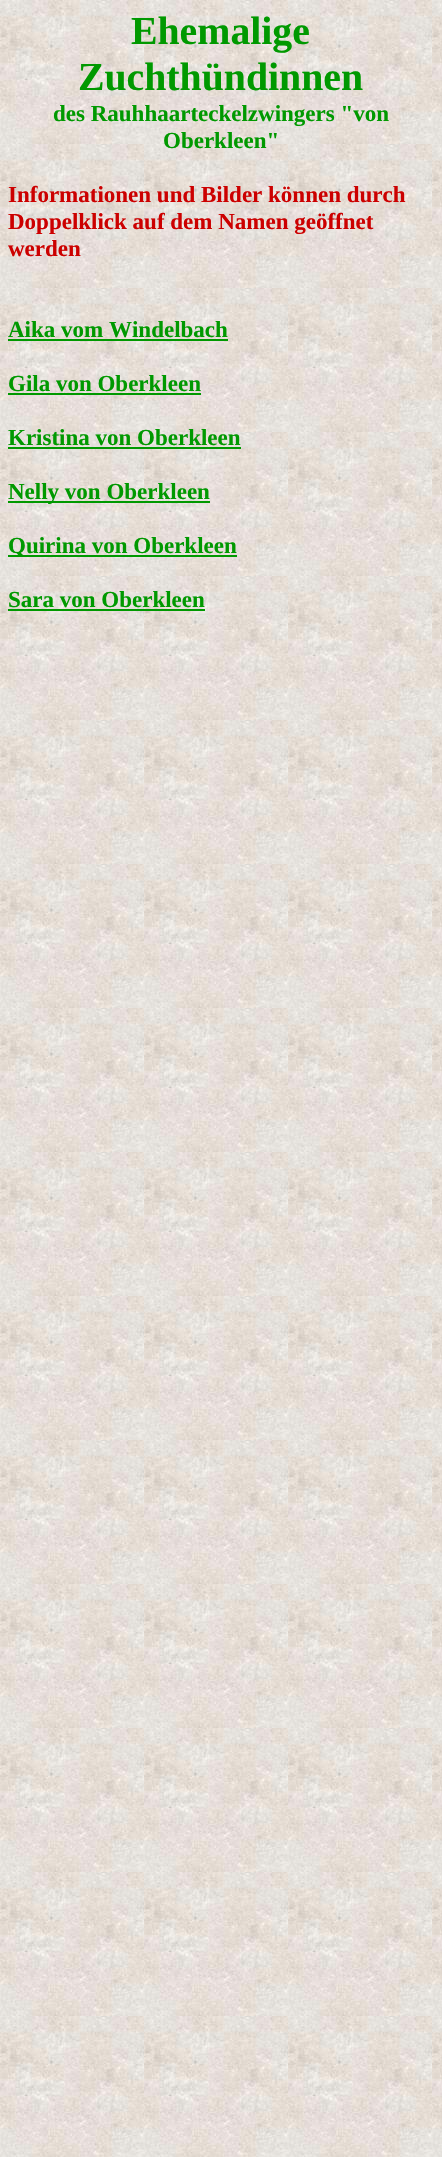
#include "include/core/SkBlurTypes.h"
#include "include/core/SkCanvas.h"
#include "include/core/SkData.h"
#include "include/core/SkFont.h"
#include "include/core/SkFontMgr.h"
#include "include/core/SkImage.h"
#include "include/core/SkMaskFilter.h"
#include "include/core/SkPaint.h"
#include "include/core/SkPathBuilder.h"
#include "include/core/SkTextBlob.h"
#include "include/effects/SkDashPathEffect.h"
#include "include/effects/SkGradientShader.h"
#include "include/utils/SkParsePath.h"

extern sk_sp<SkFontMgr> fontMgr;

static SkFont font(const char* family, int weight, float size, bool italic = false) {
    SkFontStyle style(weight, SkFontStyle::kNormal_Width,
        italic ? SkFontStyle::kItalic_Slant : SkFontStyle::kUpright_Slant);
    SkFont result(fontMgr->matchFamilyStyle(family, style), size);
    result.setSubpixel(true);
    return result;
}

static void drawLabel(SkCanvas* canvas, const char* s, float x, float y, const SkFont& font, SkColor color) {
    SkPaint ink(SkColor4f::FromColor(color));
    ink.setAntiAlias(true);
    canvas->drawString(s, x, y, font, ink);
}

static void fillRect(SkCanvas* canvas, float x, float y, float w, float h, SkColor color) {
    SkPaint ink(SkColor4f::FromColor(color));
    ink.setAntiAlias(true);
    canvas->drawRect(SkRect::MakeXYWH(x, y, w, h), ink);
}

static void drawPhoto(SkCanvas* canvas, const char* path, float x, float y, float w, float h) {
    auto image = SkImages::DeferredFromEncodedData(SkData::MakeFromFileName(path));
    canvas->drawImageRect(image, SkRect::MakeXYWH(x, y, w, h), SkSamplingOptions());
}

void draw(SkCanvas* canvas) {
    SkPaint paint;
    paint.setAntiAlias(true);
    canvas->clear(0xFFFFFFFF);
    drawPhoto(canvas, "assets/img1.png", 0, 0, 442, 2157);
    SkFont font1 = font("Liberation Serif", 700, 39.75f);
    drawLabel(canvas, "Ehemalige", 131, 44, font1, 0xFF009900);
    drawLabel(canvas, "Zuchthündinnen", 78, 90, font1, 0xFF009900);
    SkFont font2 = font("Liberation Serif", 700, 23);
    drawLabel(canvas, "des Rauhhaarteckelzwingers \"von", 53, 121, font2, 0xFF009900);
    drawLabel(canvas, "Oberkleen\"", 163, 148, font2, 0xFF009900);
    drawLabel(canvas, "Informationen und Bilder können durch", 8, 202, font2, 0xFFCC0000);
    drawLabel(canvas, "Doppelklick auf dem Namen geöffnet", 8, 229, font2, 0xFFCC0000);
    drawLabel(canvas, "werden", 8, 256, font2, 0xFFCC0000);
    drawLabel(canvas, "Aika vom Windelbach", 8, 337, font2, 0xFF009900);
    fillRect(canvas, 8, 339, 220, 2, 0xFF009900);
    drawLabel(canvas, "Gila von Oberkleen", 8, 391, font2, 0xFF009900);
    fillRect(canvas, 8, 393, 193, 2, 0xFF009900);
    drawLabel(canvas, "Kristina von Oberkleen", 8, 445, font2, 0xFF009900);
    fillRect(canvas, 8, 447, 233, 2, 0xFF009900);
    fillRect(canvas, 8, 501, 202, 2, 0xFF009900);
    drawLabel(canvas, "Nelly von Oberkleen", 8, 499, font2, 0xFF009900);
    fillRect(canvas, 8, 555, 229, 2, 0xFF009900);
    drawLabel(canvas, "Quirina von Oberkleen", 8, 553, font2, 0xFF009900);
    drawLabel(canvas, "Sara von Oberkleen", 8, 607, font2, 0xFF009900);
    fillRect(canvas, 8, 609, 197, 2, 0xFF009900);
}
